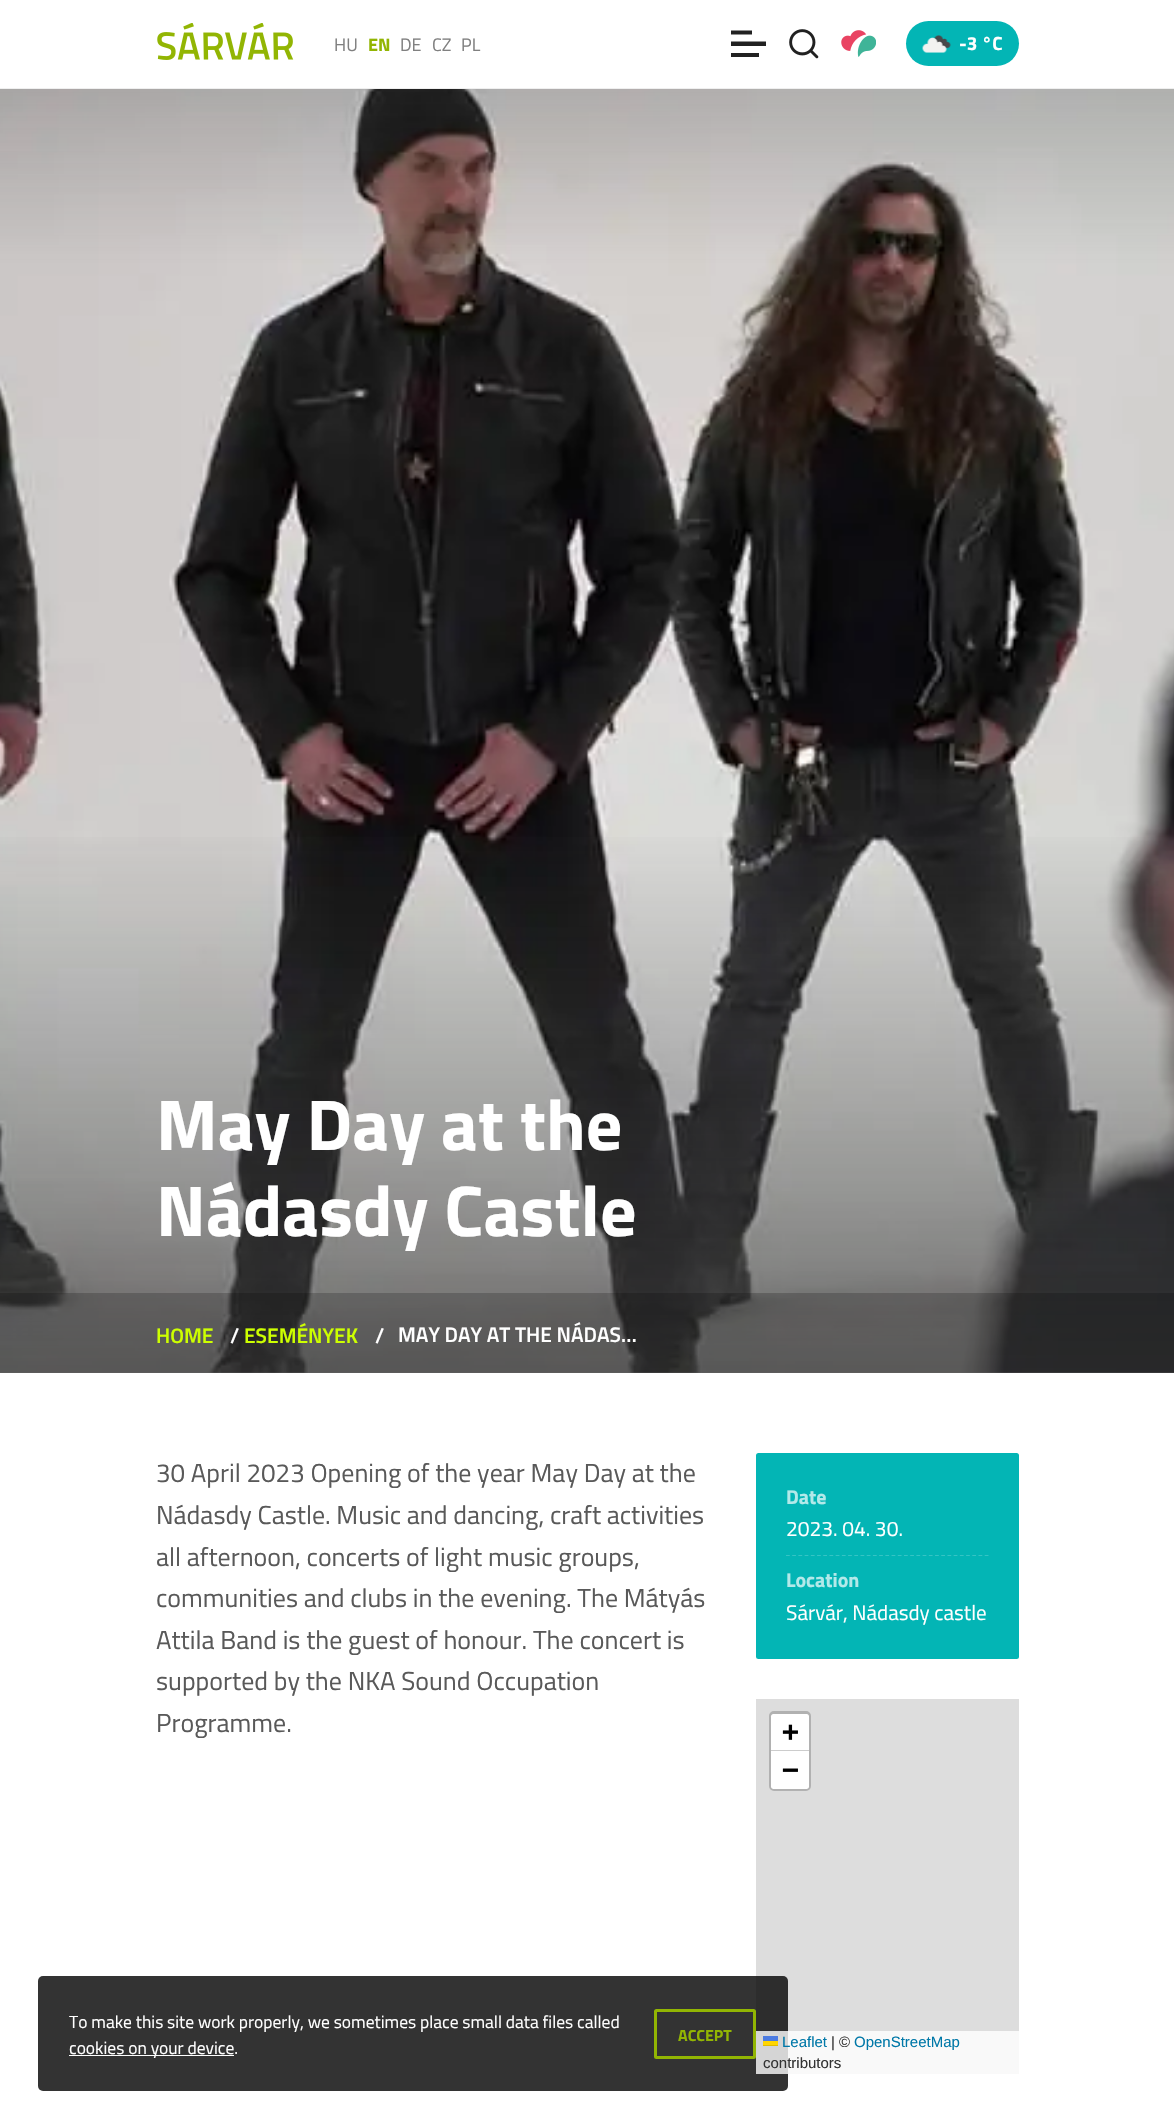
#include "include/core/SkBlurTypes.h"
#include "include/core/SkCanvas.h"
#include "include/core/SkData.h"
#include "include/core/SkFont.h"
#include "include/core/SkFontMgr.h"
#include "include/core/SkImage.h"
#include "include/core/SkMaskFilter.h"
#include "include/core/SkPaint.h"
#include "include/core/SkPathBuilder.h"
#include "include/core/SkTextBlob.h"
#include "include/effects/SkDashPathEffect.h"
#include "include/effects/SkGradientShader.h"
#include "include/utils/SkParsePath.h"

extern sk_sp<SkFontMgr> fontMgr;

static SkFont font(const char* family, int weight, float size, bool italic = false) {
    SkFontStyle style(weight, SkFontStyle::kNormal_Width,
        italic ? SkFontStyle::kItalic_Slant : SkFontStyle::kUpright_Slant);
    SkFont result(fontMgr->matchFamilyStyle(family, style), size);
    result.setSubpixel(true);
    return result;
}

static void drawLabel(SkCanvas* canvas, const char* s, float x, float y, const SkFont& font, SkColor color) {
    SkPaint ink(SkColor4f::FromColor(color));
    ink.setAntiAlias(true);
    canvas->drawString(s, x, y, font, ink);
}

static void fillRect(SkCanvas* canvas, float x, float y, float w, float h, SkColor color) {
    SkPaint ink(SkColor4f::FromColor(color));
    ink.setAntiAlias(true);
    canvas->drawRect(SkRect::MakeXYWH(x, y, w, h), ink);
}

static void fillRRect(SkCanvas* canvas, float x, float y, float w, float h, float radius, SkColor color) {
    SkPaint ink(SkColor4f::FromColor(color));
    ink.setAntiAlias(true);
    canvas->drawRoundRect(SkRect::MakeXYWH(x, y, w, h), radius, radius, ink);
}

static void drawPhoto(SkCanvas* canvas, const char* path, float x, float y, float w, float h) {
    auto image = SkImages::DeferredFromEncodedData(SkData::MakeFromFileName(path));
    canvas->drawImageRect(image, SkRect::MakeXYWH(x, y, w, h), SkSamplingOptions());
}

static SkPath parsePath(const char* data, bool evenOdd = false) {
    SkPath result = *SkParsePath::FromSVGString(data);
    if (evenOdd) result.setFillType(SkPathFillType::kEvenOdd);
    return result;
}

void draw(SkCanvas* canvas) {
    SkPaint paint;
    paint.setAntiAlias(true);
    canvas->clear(0xFFFFFFFF);
    fillRect(canvas, 0, 88, 1174, 1, 0xFFEFEFEF);
    drawPhoto(canvas, "assets/img1.png", 157, 23, 137, 37);
    SkFont font1 = font("Titillium Web", 400, 18);
    drawLabel(canvas, "HU", 334, 51, font1, 0xFF808080);
    SkFont font2 = font("Titillium Web", 700, 18);
    drawLabel(canvas, "EN", 368, 51, font2, 0xFF92B503);
    drawLabel(canvas, "DE", 400, 51, font1, 0xFF808080);
    drawLabel(canvas, "CZ", 432, 51, font1, 0xFF808080);
    drawLabel(canvas, "PL", 461, 51, font1, 0xFF808080);
    paint.setColor(0xFF212121);
    canvas->drawPath(parsePath("M759 53V57H731V53ZM766 41.5V46H731V41.5ZM752 30.5V34.5H731V30.5Z"), paint);
    drawPhoto(canvas, "assets/img2.png", 789, 29, 30, 30);
    drawPhoto(canvas, "assets/img3.png", 841, 30, 35, 27);
    fillRRect(canvas, 906, 21, 113, 45, 22.5f, 0xFF03B5B5);
    drawPhoto(canvas, "assets/img4.png", 922, 35, 29, 18);
    SkFont font3 = font("Titillium Web", 700, 19);
    drawLabel(canvas, "-3 °C", 959, 50, font3, 0xFFFFFFFF);
    drawPhoto(canvas, "assets/img5.png", 0, 89, 1174, 1284);
    {
        const SkColor colors[] = {0xA6424242, 0x00424242};
        const float stops[] = {0, 1};
        const SkPoint ends[] = {{588, 1373}, {588, 819}};
        paint.setShader(SkGradientShader::MakeLinear(ends, colors, stops, 2, SkTileMode::kClamp));
        paint.setAlpha(255);
    }
    canvas->drawRect(SkRect::MakeXYWH(0, 837, 1174, 536), paint);
    SkFont font4 = font("Titillium Web", 700, 72);
    drawLabel(canvas, "May Day at the", 156, 1150, font4, 0xFFFFFFFF);
    drawLabel(canvas, "Nádasdy Castle", 156, 1236, font4, 0xFFFFFFFF);
    fillRect(canvas, 0, 1293, 1174, 80, 0x33000000);
    SkFont font5 = font("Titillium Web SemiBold", 600, 21);
    drawLabel(canvas, "HOME", 156, 1343, font5, 0xFFCDFF00);
    drawLabel(canvas, "/", 230, 1343, font5, 0xFFFFFFFF);
    drawLabel(canvas, "ESEMÉNYEK", 244, 1343, font5, 0xFFCDFF00);
    drawLabel(canvas, "/", 375, 1343, font5, 0xFFFFFFFF);
    drawLabel(canvas, "MAY DAY AT THE NÁDAS…", 398, 1342, font5, 0xFFFFFFFF);
    SkFont font6 = font("Titillium Web", 400, 26);
    drawLabel(canvas, "30 April 2023 Opening of the year May Day at the", 156, 1482, font6, 0xFF595959);
    drawLabel(canvas, "Nádasdy Castle. Music and dancing, craft activities", 156, 1524, font6, 0xFF595959);
    drawLabel(canvas, "all afternoon, concerts of light music groups,", 156, 1566, font6, 0xFF595959);
    drawLabel(canvas, "communities and clubs in the evening. The Mátyás", 156, 1607, font6, 0xFF595959);
    drawLabel(canvas, "Attila Band is the guest of honour. The concert is", 156, 1649, font6, 0xFF595959);
    drawLabel(canvas, "supported by the NKA Sound Occupation", 156, 1690, font6, 0xFF595959);
    drawLabel(canvas, "Programme.", 156, 1732, font6, 0xFF595959);
    fillRRect(canvas, 756, 1453, 263, 206, 2.5f, 0xFF03B5B5);
    SkFont font7 = font("Titillium Web", 700, 20);
    drawLabel(canvas, "Date", 786, 1504, font7, 0xFFB3E9E9);
    SkFont font8 = font("Titillium Web", 400, 21);
    drawLabel(canvas, "2023. 04. 30.", 786, 1536, font8, 0xFFFFFFFF);
    paint.setStroke(true);
    paint.setStrokeWidth(1.2f);
    paint.setShader(nullptr);
    paint.setColor(0xFF35C4C4);
    paint.setPathEffect(SkDashPathEffect::Make({{3.75f, 2.46f}}, 0));
    canvas->drawPath(parsePath("M786 1555.5H989"), paint);
    paint.setPathEffect(nullptr);
    drawLabel(canvas, "Location", 786, 1587, font7, 0xFFB3E9E9);
    drawLabel(canvas, "Sárvár, Nádasdy castle", 786, 1620, font8, 0xFFFFFFFF);
    fillRect(canvas, 756, 1699, 263, 375, 0xFFDDDDDD);
    paint.setStrokeWidth(3);
    paint.setColor(0xFFB1B1B1);
    canvas->drawRoundRect(SkRect::MakeXYWH(770.5f, 1712.5f, 39, 77), 3.5f, 3.5f, paint);
    paint.setStroke(false);
    paint.setColor(0xFFFFFFFF);
    canvas->drawPath(parsePath("M773.5 1714H806.5C808 1714 809 1715 809 1716.5V1751H771V1716.5C771 1715 772 1714 773.5 1714Z"), paint);
    fillRect(canvas, 771, 1750, 38, 1, 0xFFCCCCCC);
    SkFont font9 = font("DejaVu Sans Mono", 700, 28);
    drawLabel(canvas, "+", 782, 1741, font9, 0xFF000000);
    canvas->drawPath(parsePath("M771 1751H809V1786.5C809 1788 808 1789 806.5 1789H773.5C772 1789 771 1788 771 1786.5Z"), paint);
    drawLabel(canvas, "−", 782, 1779, font9, 0xFF000000);
    fillRRect(canvas, 38, 1976, 750, 115, 5, 0xCC000000);
    fillRect(canvas, 756, 2031, 263, 43, 0xCCFFFFFF);
    SkFont font10 = font("Liberation Sans", 400, 15);
    drawLabel(canvas, "Leaflet", 782, 2047, font10, 0xFF0078A8);
    fillRect(canvas, 763, 2036, 15, 5, 0xFF4C7BE1);
    fillRect(canvas, 763, 2041, 15, 4, 0xFFFFD500);
    fillRect(canvas, 763, 2045, 15, 1, 0xFFE0BC00);
    drawLabel(canvas, "| ©", 831, 2047, font10, 0xFF333333);
    drawLabel(canvas, "OpenStreetMap", 854, 2047, font10, 0xFF0078A8);
    drawLabel(canvas, "contributors", 763, 2068, font10, 0xFF333333);
    SkFont font11 = font("Titillium Web", 400, 17.5f);
    drawLabel(canvas, "To make this site work properly, we sometimes place small data files called", 69, 2028, font11, 0xFFFFFFFF);
    fillRect(canvas, 69, 2055, 165, 1, 0xFFFFFFFF);
    drawLabel(canvas, "cookies on your device.", 69, 2054, font11, 0xFFFFFFFF);
    paint.setStroke(true);
    paint.setColor(0xFF92B503);
    canvas->drawRoundRect(SkRect::MakeXYWH(655.5f, 2010.5f, 99, 47), 1, 1, paint);
    SkFont font12 = font("Titillium Web", 700, 16);
    drawLabel(canvas, "ACCEPT", 678, 2041, font12, 0xFF92B503);
}
